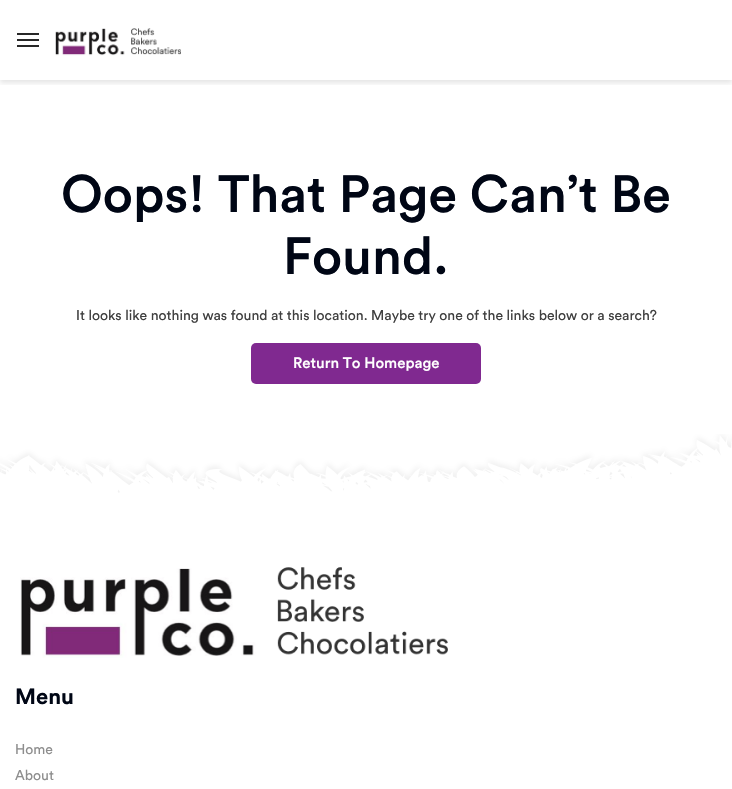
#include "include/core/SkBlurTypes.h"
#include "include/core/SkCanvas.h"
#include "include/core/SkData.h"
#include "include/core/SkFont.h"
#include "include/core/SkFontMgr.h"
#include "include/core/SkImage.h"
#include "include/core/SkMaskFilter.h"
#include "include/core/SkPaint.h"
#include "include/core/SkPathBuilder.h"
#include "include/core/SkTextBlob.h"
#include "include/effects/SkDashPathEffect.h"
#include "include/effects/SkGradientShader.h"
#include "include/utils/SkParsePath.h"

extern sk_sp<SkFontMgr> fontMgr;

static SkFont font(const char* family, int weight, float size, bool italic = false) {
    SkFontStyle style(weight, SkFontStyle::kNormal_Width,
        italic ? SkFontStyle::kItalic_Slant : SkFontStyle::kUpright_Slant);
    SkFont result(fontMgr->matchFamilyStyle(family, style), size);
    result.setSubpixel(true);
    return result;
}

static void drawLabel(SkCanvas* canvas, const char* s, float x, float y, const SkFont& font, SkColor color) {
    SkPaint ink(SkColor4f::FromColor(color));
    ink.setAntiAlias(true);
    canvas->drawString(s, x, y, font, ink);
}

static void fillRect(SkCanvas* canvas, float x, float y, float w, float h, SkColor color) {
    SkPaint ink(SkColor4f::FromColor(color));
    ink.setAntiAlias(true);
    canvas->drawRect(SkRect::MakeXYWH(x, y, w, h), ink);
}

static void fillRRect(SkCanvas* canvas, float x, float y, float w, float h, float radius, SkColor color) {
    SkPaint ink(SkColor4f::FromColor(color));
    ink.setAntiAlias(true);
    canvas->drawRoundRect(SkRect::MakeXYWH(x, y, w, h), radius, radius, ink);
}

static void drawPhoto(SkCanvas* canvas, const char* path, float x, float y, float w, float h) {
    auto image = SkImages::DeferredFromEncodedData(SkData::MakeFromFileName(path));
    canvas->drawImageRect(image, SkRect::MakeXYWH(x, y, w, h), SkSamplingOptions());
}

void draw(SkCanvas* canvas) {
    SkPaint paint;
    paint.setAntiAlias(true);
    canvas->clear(0xFFFFFFFF);
    canvas->save();
    canvas->clipRect(SkRect::MakeXYWH(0, 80, 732, 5));
    paint.setColor(0x1A000000);
    paint.setMaskFilter(SkMaskFilter::MakeBlur(kNormal_SkBlurStyle, 2.5f));
    canvas->drawRect(SkRect::MakeXYWH(0, 3, 732, 80), paint);
    paint.setMaskFilter(nullptr);
    canvas->restore();
    fillRect(canvas, 17, 33, 22, 2, 0xFF282828);
    fillRect(canvas, 17, 39, 22, 2, 0xFF282828);
    fillRect(canvas, 17, 45, 22, 2, 0xFF282828);
    drawPhoto(canvas, "assets/img1.png", 55, 28, 126, 28);
    SkFont font1 = font("Circular", 500, 52);
    drawLabel(canvas, "Oops! That Page Can’t Be", 61, 212, font1, 0xFF000615);
    drawLabel(canvas, "Found.", 283, 274, font1, 0xFF000615);
    SkFont font2 = font("Circular", 400, 14);
    drawLabel(canvas, "It looks like nothing was found at this location. Maybe try one of the links below or a search?", 76, 320, font2, 0xFF3F3F3F);
    fillRRect(canvas, 251, 343, 230, 41, 5, 0xFF802990);
    SkFont font3 = font("Circular", 500, 15);
    drawLabel(canvas, "Return To Homepage", 293, 368, font3, 0xFFFFFFFF);
    canvas->save();
    canvas->clipRect(SkRect::MakeXYWH(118, 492, 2, 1));
    paint.setColor(0x99000000);
    paint.setMaskFilter(SkMaskFilter::MakeBlur(kNormal_SkBlurStyle, 3));
    canvas->drawRect(SkRect::MakeXYWH(0, 497, 732, 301), paint);
    paint.setMaskFilter(nullptr);
    canvas->restore();
    drawPhoto(canvas, "assets/img2.png", 0, 434, 732, 60);
    drawPhoto(canvas, "assets/img3.png", 20, 567, 428, 91);
    SkFont font4 = font("Circular", 700, 22);
    drawLabel(canvas, "Menu", 15, 704, font4, 0xFF000615);
    drawLabel(canvas, "Home", 15, 754, font2, 0xFF8E8E8E);
    drawLabel(canvas, "About", 15, 780, font2, 0xFF8E8E8E);
}
